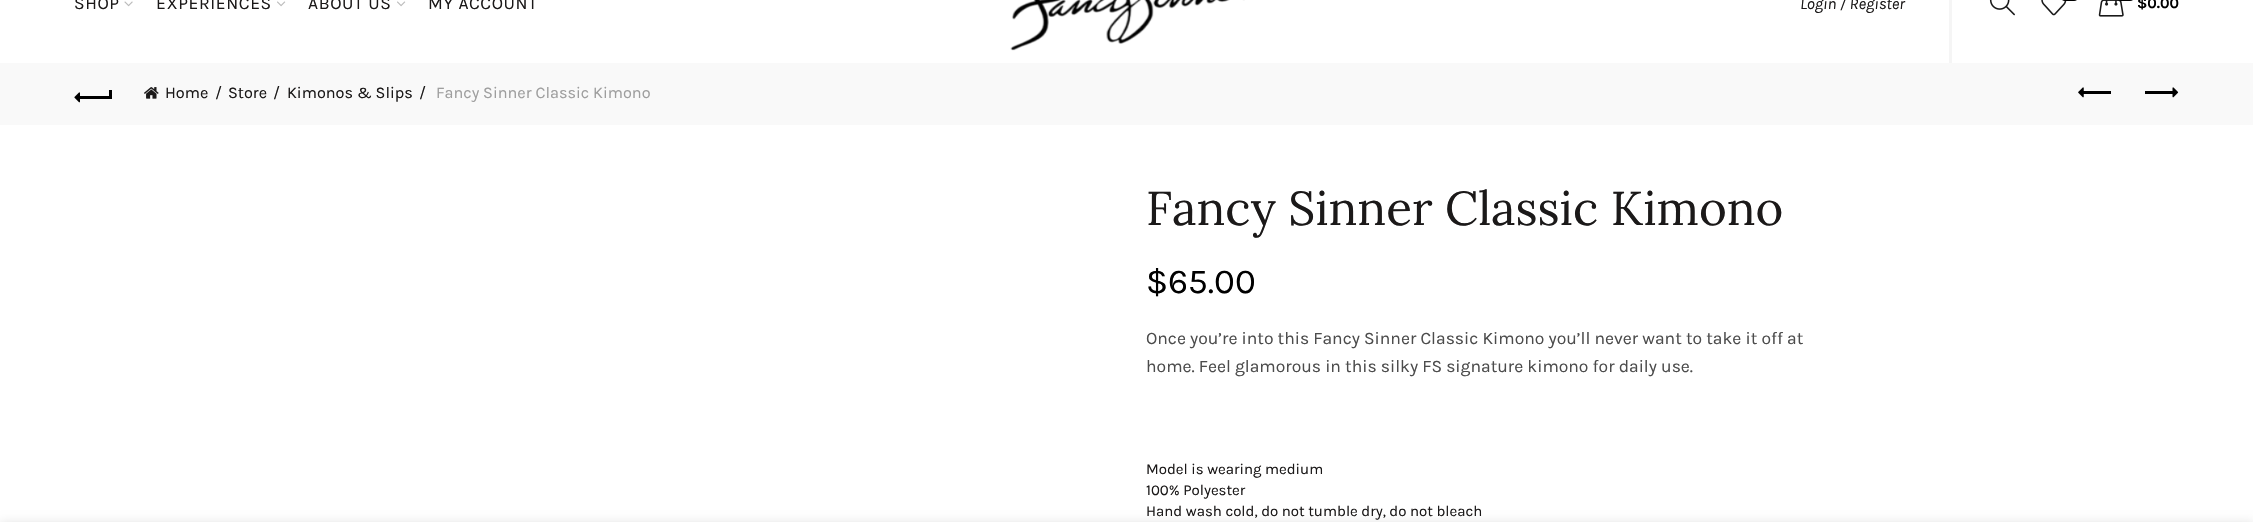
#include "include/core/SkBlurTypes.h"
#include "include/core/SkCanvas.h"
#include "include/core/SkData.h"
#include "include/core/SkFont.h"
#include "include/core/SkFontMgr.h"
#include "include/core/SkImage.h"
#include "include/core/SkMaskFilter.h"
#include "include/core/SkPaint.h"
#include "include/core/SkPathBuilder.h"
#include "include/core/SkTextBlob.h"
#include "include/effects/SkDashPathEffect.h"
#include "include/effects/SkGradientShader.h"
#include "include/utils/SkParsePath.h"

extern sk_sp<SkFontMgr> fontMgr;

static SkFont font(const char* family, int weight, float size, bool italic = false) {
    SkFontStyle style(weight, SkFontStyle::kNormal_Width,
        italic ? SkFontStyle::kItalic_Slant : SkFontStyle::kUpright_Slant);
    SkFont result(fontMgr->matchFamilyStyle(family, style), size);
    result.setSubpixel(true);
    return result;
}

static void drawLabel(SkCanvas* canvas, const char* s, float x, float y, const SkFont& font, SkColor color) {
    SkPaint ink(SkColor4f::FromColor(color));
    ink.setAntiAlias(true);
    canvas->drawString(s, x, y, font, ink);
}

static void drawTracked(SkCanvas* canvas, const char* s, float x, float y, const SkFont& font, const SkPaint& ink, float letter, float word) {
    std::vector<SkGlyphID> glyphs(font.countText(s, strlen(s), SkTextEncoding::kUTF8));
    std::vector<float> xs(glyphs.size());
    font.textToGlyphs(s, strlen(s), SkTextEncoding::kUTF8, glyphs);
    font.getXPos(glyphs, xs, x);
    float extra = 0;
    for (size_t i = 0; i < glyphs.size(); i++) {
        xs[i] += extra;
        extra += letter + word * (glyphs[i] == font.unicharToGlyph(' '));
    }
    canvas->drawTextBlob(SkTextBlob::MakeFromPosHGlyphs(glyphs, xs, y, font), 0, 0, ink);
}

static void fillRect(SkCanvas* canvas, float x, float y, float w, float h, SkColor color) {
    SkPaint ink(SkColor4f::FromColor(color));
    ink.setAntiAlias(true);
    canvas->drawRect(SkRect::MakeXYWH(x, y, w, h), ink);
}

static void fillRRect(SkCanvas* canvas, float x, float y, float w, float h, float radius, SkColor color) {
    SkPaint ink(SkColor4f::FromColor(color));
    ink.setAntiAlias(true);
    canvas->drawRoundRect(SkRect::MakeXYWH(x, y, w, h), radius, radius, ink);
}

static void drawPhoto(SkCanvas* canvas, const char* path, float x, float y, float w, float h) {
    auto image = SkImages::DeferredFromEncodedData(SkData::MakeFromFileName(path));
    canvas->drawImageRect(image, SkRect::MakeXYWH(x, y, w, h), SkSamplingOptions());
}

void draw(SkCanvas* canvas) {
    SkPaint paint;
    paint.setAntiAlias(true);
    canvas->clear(0xFFFFFFFF);
    SkFont font1 = font("Karla", 400, 17.5f);
    paint.setColor(0xFF1B1919);
    drawTracked(canvas, "SHOP", 74, 9, font1, paint, 0.6f, 0);
    drawPhoto(canvas, "assets/img1.png", 124, 1, 9, 6);
    drawTracked(canvas, "EXPERIENCES", 156, 9, font1, paint, 0.6f, 0);
    drawPhoto(canvas, "assets/img2.png", 277, 1, 9, 6);
    drawTracked(canvas, "ABOUT US", 308, 9, font1, paint, 0.6f, 0);
    drawPhoto(canvas, "assets/img2.png", 397, 1, 9, 6);
    drawTracked(canvas, "MY ACCOUNT", 428, 9, font1, paint, 0.6f, 0);
    drawPhoto(canvas, "assets/img3.png", 1010, 0, 235, 51);
    fillRect(canvas, 1949, 0, 3, 63, 0xFFF5F5F5);
    SkFont font2 = font("Karla", 400, 16.25f, true);
    drawLabel(canvas, "Login / Register", 1800, 9, font2, 0xFF1B1919);
    drawPhoto(canvas, "assets/img4.png", 1989, 0, 26, 16);
    drawPhoto(canvas, "assets/img5.png", 2041, 0, 26, 16);
    fillRRect(canvas, 2060, -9, 19, 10, 9, 0xFF000000);
    drawPhoto(canvas, "assets/img6.png", 2098, 0, 26, 17);
    fillRRect(canvas, 2116, -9, 19, 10, 9, 0xFF000000);
    SkFont font3 = font("Karla", 700, 15);
    drawLabel(canvas, "$0.00", 2137, 8, font3, 0xFF000000);
    fillRect(canvas, 0, 63, 2253, 62, 0xFFF9F9F9);
    fillRect(canvas, 79, 96, 31, 3, 0xFF000000);
    drawPhoto(canvas, "assets/img7.png", 74, 92, 6, 11);
    fillRect(canvas, 109, 90, 3, 9, 0xFF000000);
    drawPhoto(canvas, "assets/img8.png", 144, 87, 15, 12);
    SkFont font4 = font("Karla", 400, 16.25f);
    drawLabel(canvas, "Home", 165, 98, font4, 0xFF1B1919);
    drawLabel(canvas, "/", 215, 98, font4, 0xFF1B1919);
    drawLabel(canvas, "Store", 228, 98, font4, 0xFF1B1919);
    drawLabel(canvas, "/", 273, 98, font4, 0xFF1B1919);
    drawLabel(canvas, "Kimonos & Slips", 287, 98, font4, 0xFF1B1919);
    drawLabel(canvas, "/", 419, 98, font4, 0xFF1B1919);
    drawLabel(canvas, "Fancy Sinner Classic Kimono", 436, 98, font4, 0xFF9E9E9E);
    fillRect(canvas, 2083, 91, 28, 3, 0xFF000000);
    drawPhoto(canvas, "assets/img9.png", 2078, 87, 6, 11);
    fillRect(canvas, 2145, 91, 29, 3, 0xFF000000);
    drawPhoto(canvas, "assets/img10.png", 2172, 87, 7, 11);
    SkFont font5 = font("Lora", 400, 47.5f);
    drawLabel(canvas, "Fancy Sinner Classic Kimono", 1146, 225, font5, 0xFF1B1919);
    SkFont font6 = font("Karla", 400, 35);
    drawLabel(canvas, "$65.00", 1146, 293, font6, 0xFF000000);
    drawLabel(canvas, "Once you’re into this Fancy Sinner Classic Kimono you’ll never want to take it off at", 1146, 344, font1, 0xFF4C4C4C);
    drawLabel(canvas, "home. Feel glamorous in this silky FS signature kimono for daily use.", 1146, 372, font1, 0xFF4C4C4C);
    SkFont font7 = font("Karla", 400, 15);
    drawLabel(canvas, "Model is wearing medium", 1146, 474, font7, 0xFF1B1919);
    drawLabel(canvas, "100% Polyester", 1146, 495, font7, 0xFF1B1919);
    drawLabel(canvas, "Hand wash cold, do not tumble dry, do not bleach", 1146, 516, font7, 0xFF1B1919);
    paint.setColor(0x1F000000);
    paint.setMaskFilter(SkMaskFilter::MakeBlur(kNormal_SkBlurStyle, 5.5f));
    canvas->drawRect(SkRect::MakeXYWH(0, 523, 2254, 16), paint);
    paint.setMaskFilter(nullptr);
}
